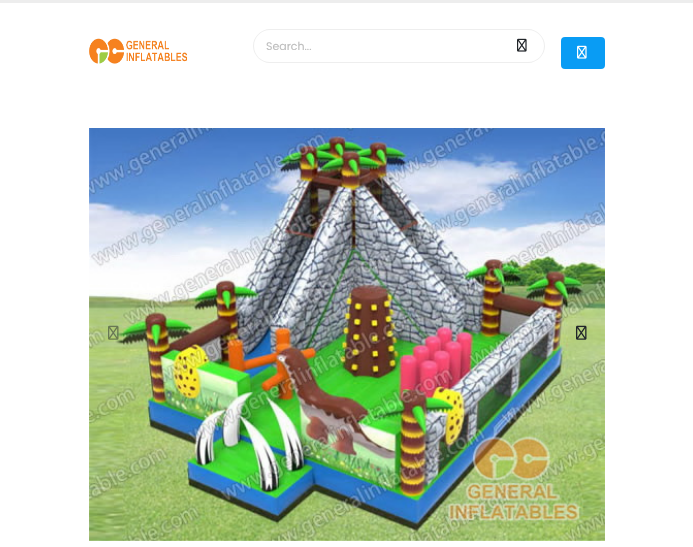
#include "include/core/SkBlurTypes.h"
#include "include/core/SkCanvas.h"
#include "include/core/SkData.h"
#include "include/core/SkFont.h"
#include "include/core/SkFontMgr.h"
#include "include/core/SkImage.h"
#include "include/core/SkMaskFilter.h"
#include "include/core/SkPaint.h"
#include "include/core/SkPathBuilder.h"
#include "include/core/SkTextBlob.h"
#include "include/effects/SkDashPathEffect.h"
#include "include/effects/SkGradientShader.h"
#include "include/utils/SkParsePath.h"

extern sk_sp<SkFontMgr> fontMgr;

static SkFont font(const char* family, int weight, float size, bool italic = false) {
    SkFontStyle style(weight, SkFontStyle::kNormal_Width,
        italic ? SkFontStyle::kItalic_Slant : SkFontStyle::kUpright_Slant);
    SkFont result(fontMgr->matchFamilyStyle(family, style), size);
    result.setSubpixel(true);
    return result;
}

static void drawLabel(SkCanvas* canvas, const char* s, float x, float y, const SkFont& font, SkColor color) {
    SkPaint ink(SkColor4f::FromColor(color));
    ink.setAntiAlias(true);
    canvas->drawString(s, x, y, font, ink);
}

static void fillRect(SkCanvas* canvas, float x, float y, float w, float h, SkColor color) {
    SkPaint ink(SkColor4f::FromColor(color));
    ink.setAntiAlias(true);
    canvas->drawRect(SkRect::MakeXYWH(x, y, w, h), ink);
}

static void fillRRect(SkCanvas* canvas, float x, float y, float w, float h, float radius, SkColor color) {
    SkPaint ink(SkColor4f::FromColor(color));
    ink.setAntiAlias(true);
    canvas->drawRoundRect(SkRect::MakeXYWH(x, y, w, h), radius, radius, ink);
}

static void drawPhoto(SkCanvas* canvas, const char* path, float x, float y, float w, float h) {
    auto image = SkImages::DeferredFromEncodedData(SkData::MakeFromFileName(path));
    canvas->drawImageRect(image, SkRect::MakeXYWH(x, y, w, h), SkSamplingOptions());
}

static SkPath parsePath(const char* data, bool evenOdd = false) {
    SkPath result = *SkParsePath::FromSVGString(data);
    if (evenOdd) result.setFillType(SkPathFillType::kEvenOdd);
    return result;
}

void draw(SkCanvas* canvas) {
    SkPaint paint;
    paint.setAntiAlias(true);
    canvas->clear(0xFFFFFFFF);
    fillRect(canvas, 0, 0, 693, 3, 0xFFEDEDED);
    drawPhoto(canvas, "assets/img1.png", 89, 38, 98, 26);
    paint.setColor(0xFFEEEEEE);
    canvas->drawPath(parsePath("M270 29H503V63H270C261 63 253 55 253 46C253 37 261 29 270 29ZM270 30H503V62H270C261 62 254 55 254 46C254 37 261 30 270 30Z", true), paint);
    SkFont font1 = font("Poppins", 400, 11);
    drawLabel(canvas, "Search...", 266, 50, font1, 0xFFBDBDBD);
    canvas->drawPath(parsePath("M502 29H528C537 29 545 37 545 46C545 55 537 63 528 63H502ZM502 30H528C537 30 544 37 544 46C544 55 537 62 528 62H502Z", true), paint);
    drawPhoto(canvas, "assets/img2.png", 517, 38, 10, 14);
    fillRRect(canvas, 561, 37, 44, 32, 4, 0xFF099CF4);
    drawPhoto(canvas, "assets/img3.png", 577, 45, 10, 14);
    drawPhoto(canvas, "assets/img4.png", 89, 128, 516, 413);
    drawPhoto(canvas, "assets/img5.png", 108, 325, 11, 15);
    drawPhoto(canvas, "assets/img6.png", 576, 325, 11, 15);
}
